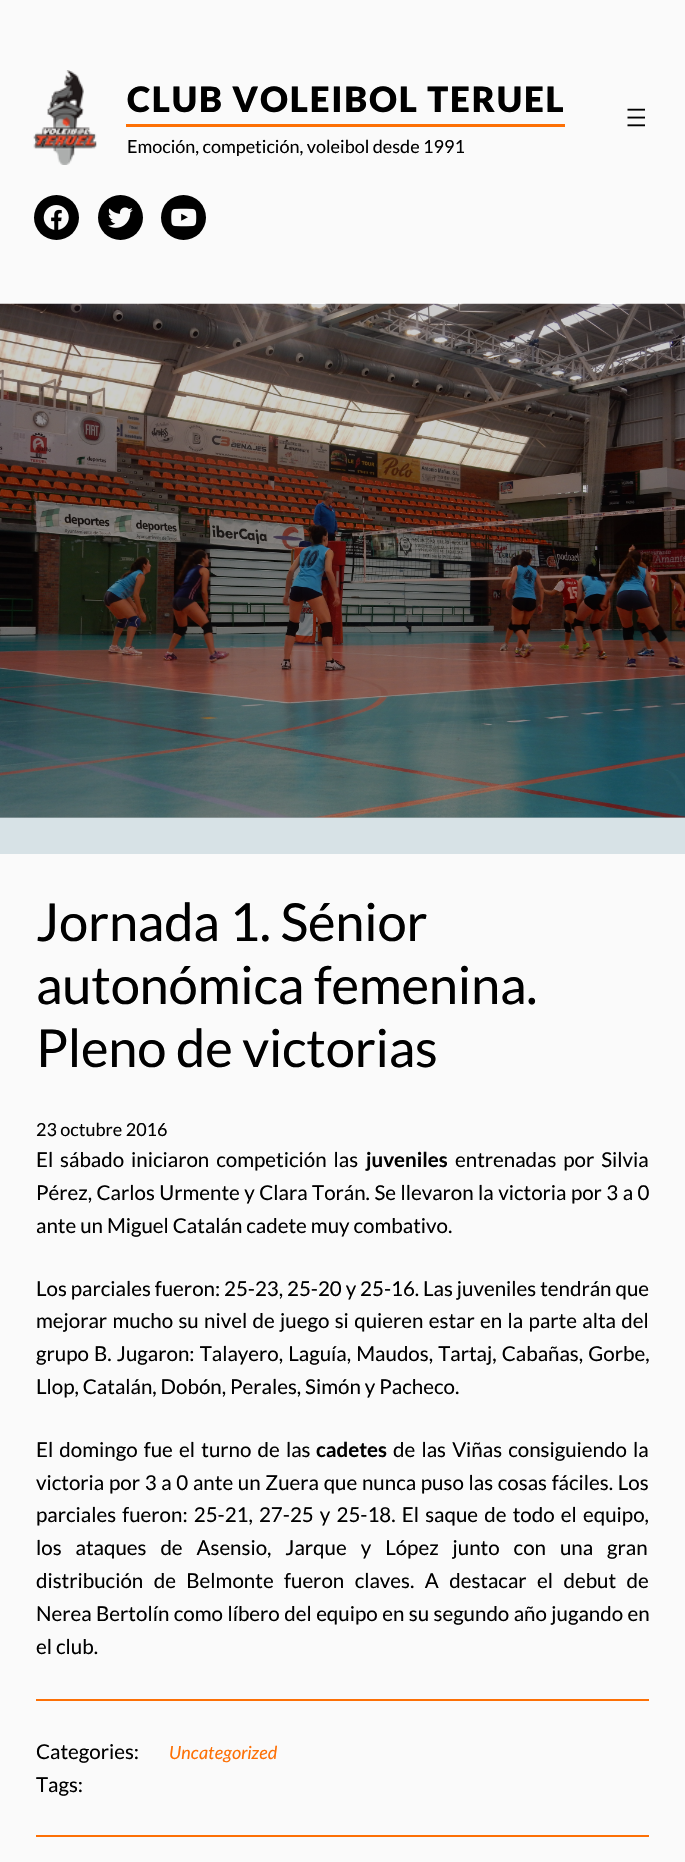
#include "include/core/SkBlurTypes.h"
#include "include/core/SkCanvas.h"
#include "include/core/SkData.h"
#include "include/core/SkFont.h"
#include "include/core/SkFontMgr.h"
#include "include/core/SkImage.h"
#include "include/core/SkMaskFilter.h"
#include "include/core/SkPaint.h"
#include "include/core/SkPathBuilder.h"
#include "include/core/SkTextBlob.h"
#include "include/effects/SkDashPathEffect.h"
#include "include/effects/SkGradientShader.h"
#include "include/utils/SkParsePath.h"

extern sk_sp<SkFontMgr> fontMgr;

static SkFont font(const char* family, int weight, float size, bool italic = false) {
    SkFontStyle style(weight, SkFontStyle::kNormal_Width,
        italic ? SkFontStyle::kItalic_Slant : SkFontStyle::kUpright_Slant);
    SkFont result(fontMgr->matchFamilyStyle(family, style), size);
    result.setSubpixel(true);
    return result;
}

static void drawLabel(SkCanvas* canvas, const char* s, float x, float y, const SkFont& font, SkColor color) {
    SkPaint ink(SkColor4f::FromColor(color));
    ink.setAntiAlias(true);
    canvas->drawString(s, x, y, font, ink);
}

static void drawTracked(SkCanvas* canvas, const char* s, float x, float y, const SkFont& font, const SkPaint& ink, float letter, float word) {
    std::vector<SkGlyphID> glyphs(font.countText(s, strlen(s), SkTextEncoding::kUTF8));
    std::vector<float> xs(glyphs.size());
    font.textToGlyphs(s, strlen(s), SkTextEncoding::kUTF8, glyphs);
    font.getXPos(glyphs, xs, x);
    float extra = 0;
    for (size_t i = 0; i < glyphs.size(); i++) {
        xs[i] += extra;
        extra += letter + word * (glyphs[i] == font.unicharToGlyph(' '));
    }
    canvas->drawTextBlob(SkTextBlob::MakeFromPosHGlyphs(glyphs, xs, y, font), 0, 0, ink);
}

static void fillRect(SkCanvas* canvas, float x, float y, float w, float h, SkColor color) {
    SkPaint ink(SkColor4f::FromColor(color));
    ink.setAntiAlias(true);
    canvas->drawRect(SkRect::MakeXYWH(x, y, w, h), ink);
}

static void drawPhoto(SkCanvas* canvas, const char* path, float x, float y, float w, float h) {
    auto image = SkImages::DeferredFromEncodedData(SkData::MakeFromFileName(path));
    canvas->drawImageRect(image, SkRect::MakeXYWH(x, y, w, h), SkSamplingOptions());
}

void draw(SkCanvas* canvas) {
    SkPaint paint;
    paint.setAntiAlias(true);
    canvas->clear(0xFFFFFFFF);
    {
        const SkColor colors[] = {0xFFFAFAFA, 0xFFFAFAFA, 0xFFD7E2E6, 0xFFD7E2E6, 0xFFFAFAFA};
        const float stops[] = {0, 0.13f, 0.13f, 0.3f, 1};
        const SkPoint ends[] = {{342, 0}, {343, 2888}};
        paint.setShader(SkGradientShader::MakeLinear(ends, colors, stops, 5, SkTileMode::kClamp));
        paint.setAlpha(255);
    }
    canvas->drawRect(SkRect::MakeXYWH(0, 0, 685, 854), paint);
    {
        const SkColor colors[] = {0xFFC8C8C8, 0xFFC8C8C8, 0xFFACB5B8, 0xFFACB5B8, 0xFFC8C8C8};
        const float stops[] = {0, 0.13f, 0.13f, 0.3f, 1};
        const SkPoint ends[] = {{342, 0}, {343, 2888}};
        paint.setShader(SkGradientShader::MakeLinear(ends, colors, stops, 5, SkTileMode::kClamp));
        paint.setAlpha(255);
    }
    canvas->drawRect(SkRect::MakeXYWH(0, 817, 685, 1), paint);
    drawPhoto(canvas, "assets/img1.png", 33, 70, 64, 95);
    fillRect(canvas, 126, 124, 439, 3, 0xFFFD7005);
    SkFont font1 = font("Lato", 900, 35);
    paint.setShader(nullptr);
    paint.setColor(0xFF000000);
    drawTracked(canvas, "CLUB VOLEIBOL TERUEL", 127, 112, font1, paint, 1.8f, 0);
    SkFont font2 = font("Lato", 400, 18);
    drawLabel(canvas, "Emoción, competición, voleibol desde 1991", 127, 153, font2, 0xFF000000);
    drawPhoto(canvas, "assets/img2.png", 627, 108, 18, 19);
    canvas->drawCircle(56.5f, 217.5f, 22.5f, paint);
    drawPhoto(canvas, "assets/img3.png", 43, 205, 26, 25);
    canvas->drawCircle(120.5f, 217.5f, 22.5f, paint);
    drawPhoto(canvas, "assets/img4.png", 108, 207, 25, 21);
    canvas->drawCircle(183.5f, 217.5f, 22.5f, paint);
    drawPhoto(canvas, "assets/img5.png", 171, 208, 26, 19);
    drawPhoto(canvas, "assets/img6.png", 0, 303, 685, 515);
    fillRect(canvas, 0, 854, 685, 1008, 0xFFFAFAFA);
    SkFont font3 = font("Lato", 400, 52.5f);
    drawTracked(canvas, "Jornada 1. Sénior", 36, 941, font3, paint, -0.25f, 0);
    drawTracked(canvas, "autonómica femenina.", 36, 1004, font3, paint, -0.25f, 0);
    drawTracked(canvas, "Pleno de victorias", 36, 1067, font3, paint, -0.25f, 0);
    drawLabel(canvas, "23 octubre 2016", 36, 1136, font2, 0xFF000000);
    SkFont font4 = font("Lato", 400, 20.5f);
    drawTracked(canvas, "El sábado iniciaron competición las", 36, 1167, font4, paint, 0, 3);
    SkFont font5 = font("Lato", 700, 20.5f);
    drawLabel(canvas, "juveniles", 366, 1167, font5, 0xFF000000);
    drawTracked(canvas, "entrenadas por Silvia", 455, 1167, font4, paint, 0, 3);
    drawTracked(canvas, "Pérez, Carlos Urmente y Clara Torán. Se llevaron la victoria por 3 a 0", 36, 1200, font4, paint, 0, 0.5f);
    drawLabel(canvas, "ante un Miguel Catalán cadete muy combativo.", 36, 1233, font4, 0xFF000000);
    drawLabel(canvas, "Los parciales fueron: 25-23, 25-20 y 25-16. Las juveniles tendrán que", 36, 1296, font4, 0xFF000000);
    drawTracked(canvas, "mejorar mucho su nivel de juego si quieren estar en la parte alta del", 36, 1328, font4, paint, 0, 1.4f);
    drawTracked(canvas, "grupo B. Jugaron: Talayero, Laguía, Maudos, Tartaj, Cabañas, Gorbe,", 36, 1361, font4, paint, 0, 1.25f);
    drawLabel(canvas, "Llop, Catalán, Dobón, Perales, Simón y Pacheco.", 36, 1394, font4, 0xFF000000);
    drawTracked(canvas, "El domingo fue el turno de las", 36, 1457, font4, paint, 0, 2.25f);
    drawLabel(canvas, "cadetes", 316, 1457, font5, 0xFF000000);
    drawTracked(canvas, "de las Viñas consiguiendo la", 393, 1457, font4, paint, 0, 2.25f);
    drawTracked(canvas, "victoria por 3 a 0 ante un Zuera que nunca puso las cosas fáciles. Los", 36, 1490, font4, paint, 0, 0.75f);
    drawTracked(canvas, "parciales fueron: 25-21, 27-25 y 25-18. El saque de todo el equipo,", 36, 1522, font4, paint, 0, 2.25f);
    drawTracked(canvas, "los ataques de Asensio, Jarque y López junto con una gran", 36, 1555, font4, paint, 0, 10);
    drawTracked(canvas, "distribución de Belmonte fueron claves. A destacar el debut de", 36, 1588, font4, paint, 0, 6.5f);
    drawTracked(canvas, "Nerea Bertolín como líbero del equipo en su segundo año jugando en", 36, 1621, font4, paint, 0, 0.5f);
    drawLabel(canvas, "el club.", 36, 1654, font4, 0xFF000000);
    fillRect(canvas, 36, 1699, 613, 2, 0xFFFD7005);
    drawLabel(canvas, "Categories:", 36, 1759, font4, 0xFF000000);
    SkFont font6 = font("Lato", 400, 18, true);
    drawLabel(canvas, "Uncategorized", 169, 1759, font6, 0xFFFD7005);
    drawLabel(canvas, "Tags:", 36, 1792, font4, 0xFF000000);
    fillRect(canvas, 36, 1835, 613, 2, 0xFFFD7005);
}
